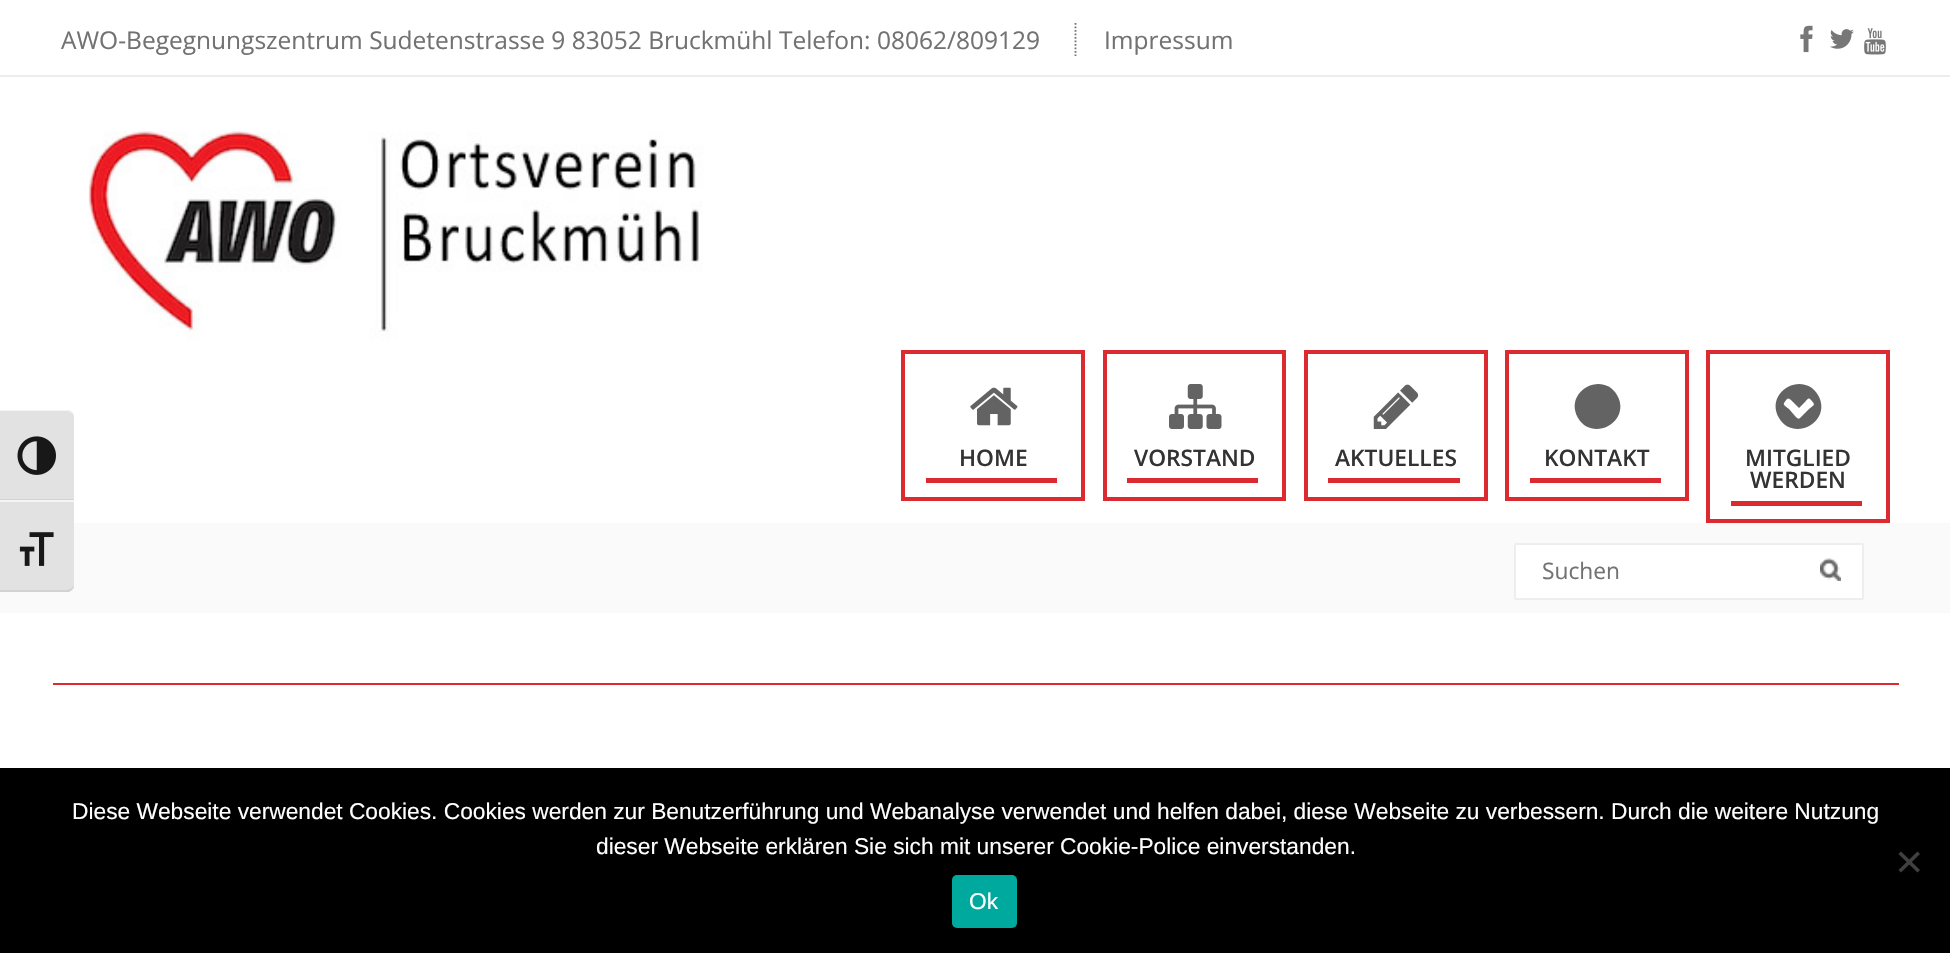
#include "include/core/SkBlurTypes.h"
#include "include/core/SkCanvas.h"
#include "include/core/SkData.h"
#include "include/core/SkFont.h"
#include "include/core/SkFontMgr.h"
#include "include/core/SkImage.h"
#include "include/core/SkMaskFilter.h"
#include "include/core/SkPaint.h"
#include "include/core/SkPathBuilder.h"
#include "include/core/SkTextBlob.h"
#include "include/effects/SkDashPathEffect.h"
#include "include/effects/SkGradientShader.h"
#include "include/utils/SkParsePath.h"

extern sk_sp<SkFontMgr> fontMgr;

static SkFont font(const char* family, int weight, float size, bool italic = false) {
    SkFontStyle style(weight, SkFontStyle::kNormal_Width,
        italic ? SkFontStyle::kItalic_Slant : SkFontStyle::kUpright_Slant);
    SkFont result(fontMgr->matchFamilyStyle(family, style), size);
    result.setSubpixel(true);
    return result;
}

static void drawLabel(SkCanvas* canvas, const char* s, float x, float y, const SkFont& font, SkColor color) {
    SkPaint ink(SkColor4f::FromColor(color));
    ink.setAntiAlias(true);
    canvas->drawString(s, x, y, font, ink);
}

static void fillRect(SkCanvas* canvas, float x, float y, float w, float h, SkColor color) {
    SkPaint ink(SkColor4f::FromColor(color));
    ink.setAntiAlias(true);
    canvas->drawRect(SkRect::MakeXYWH(x, y, w, h), ink);
}

static void fillRRect(SkCanvas* canvas, float x, float y, float w, float h, float radius, SkColor color) {
    SkPaint ink(SkColor4f::FromColor(color));
    ink.setAntiAlias(true);
    canvas->drawRoundRect(SkRect::MakeXYWH(x, y, w, h), radius, radius, ink);
}

static void drawPhoto(SkCanvas* canvas, const char* path, float x, float y, float w, float h) {
    auto image = SkImages::DeferredFromEncodedData(SkData::MakeFromFileName(path));
    canvas->drawImageRect(image, SkRect::MakeXYWH(x, y, w, h), SkSamplingOptions());
}

static SkPath parsePath(const char* data, bool evenOdd = false) {
    SkPath result = *SkParsePath::FromSVGString(data);
    if (evenOdd) result.setFillType(SkPathFillType::kEvenOdd);
    return result;
}

void draw(SkCanvas* canvas) {
    SkPaint paint;
    paint.setAntiAlias(true);
    canvas->clear(0xFFFFFFFF);
    paint.setColor(0xFFE2E2E2);
    canvas->drawPath(parsePath("M0 410H67C71 410 74 413 74 417V501H0Z"), paint);
    paint.setColor(0xFFF5F5F5);
    canvas->drawPath(parsePath("M0 411H66C69 411 72 413 74 415V414C72 412 69 410 66 410H0Z"), paint);
    fillRect(canvas, 0, 499, 74, 1, 0xFFD2D2D2);
    drawPhoto(canvas, "assets/img1.png", 17, 436, 39, 39);
    fillRect(canvas, 0, 523, 1950, 90, 0xFFFAFAFA);
    paint.setColor(0xFFE2E2E2);
    canvas->drawPath(parsePath("M0 501H74V585C74 589 71 592 67 592H0Z"), paint);
    fillRect(canvas, 0, 500, 74, 2, 0xFFF5F5F5);
    paint.setColor(0xFFD2D2D2);
    canvas->drawPath(parsePath("M74 586C72 588 69 590 66 590H0V592H69C71 591 73 589 74 587Z"), paint);
    drawPhoto(canvas, "assets/img2.png", 19, 532, 35, 34);
    fillRect(canvas, 0, 75, 1950, 2, 0xFFEDEDED);
    SkFont font1 = font("Open Sans", 400, 24.5f);
    drawLabel(canvas, "AWO-Begegnungszentrum Sudetenstrasse 9 83052 Bruckmühl Telefon: 08062/809129", 61, 49, font1, 0xFF737272);
    drawLabel(canvas, "Impressum", 1104, 49, font1, 0xFF737272);
    paint.setStroke(true);
    paint.setStrokeWidth(1.8f);
    paint.setColor(0xFF737272);
    paint.setPathEffect(SkDashPathEffect::Make({{1.75f, 1.75f}}, 0));
    canvas->drawPath(parsePath("M1075.5 23V56"), paint);
    paint.setPathEffect(nullptr);
    drawPhoto(canvas, "assets/img3.png", 1800, 25, 13, 28);
    drawPhoto(canvas, "assets/img4.png", 1830, 29, 24, 20);
    drawPhoto(canvas, "assets/img5.png", 1864, 28, 22, 27);
    drawPhoto(canvas, "assets/img6.png", 88, 131, 615, 210);
    paint.setStrokeWidth(4);
    paint.setColor(0xFFDB2B31);
    canvas->drawRect(SkRect::MakeXYWH(903, 352, 180, 147), paint);
    drawPhoto(canvas, "assets/img7.png", 970, 387, 48, 39);
    SkFont font2 = font("Open Sans", 600, 22.75f);
    drawLabel(canvas, "HOME", 959, 466, font2, 0xFF333333);
    fillRect(canvas, 926, 478, 131, 5, 0xFFDB2B31);
    canvas->drawRect(SkRect::MakeXYWH(1105, 352, 179, 147), paint);
    drawPhoto(canvas, "assets/img8.png", 1169, 384, 53, 45);
    drawLabel(canvas, "VORSTAND", 1134, 466, font2, 0xFF333333);
    fillRect(canvas, 1127, 478, 131, 5, 0xFFDB2B31);
    canvas->drawRect(SkRect::MakeXYWH(1306, 352, 180, 147), paint);
    drawPhoto(canvas, "assets/img9.png", 1373, 384, 46, 45);
    drawLabel(canvas, "AKTUELLES", 1335, 466, font2, 0xFF333333);
    fillRect(canvas, 1328, 478, 132, 5, 0xFFDB2B31);
    canvas->drawRect(SkRect::MakeXYWH(1507, 352, 180, 147), paint);
    paint.setStroke(false);
    paint.setColor(0xFF636363);
    canvas->drawPath(parsePath("M1617 395C1632 421 1593 443 1578 418C1563 392 1602 370 1617 395Z"), paint);
    drawLabel(canvas, "KONTAKT", 1544, 466, font2, 0xFF333333);
    fillRect(canvas, 1530, 478, 131, 5, 0xFFDB2B31);
    paint.setStroke(true);
    paint.setColor(0xFFDB2B31);
    canvas->drawRect(SkRect::MakeXYWH(1708, 352, 180, 169), paint);
    paint.setStroke(false);
    paint.setColor(0xFF636363);
    canvas->drawPath(parsePath("M1800 418L1809 409C1814 405 1816 405 1811 400C1808 397 1808 399 1805 402L1799 408L1793 402C1792 401 1789 397 1787 399C1782 405 1783 404 1789 409L1795 416C1796 417 1798 420 1800 418ZM1818 395C1833 421 1794 443 1779 418C1764 392 1803 370 1818 395Z"), paint);
    drawLabel(canvas, "MITGLIED", 1745, 466, font2, 0xFF333333);
    drawLabel(canvas, "WERDEN", 1750, 488, font2, 0xFF333333);
    fillRect(canvas, 1731, 501, 131, 5, 0xFFDB2B31);
    paint.setColor(0xFFFFFFFF);
    canvas->drawRoundRect(SkRect::MakeXYWH(1515, 544, 348, 55), 1, 1, paint);
    paint.setStroke(true);
    paint.setStrokeWidth(2);
    paint.setColor(0xFFEEEEEE);
    canvas->drawRoundRect(SkRect::MakeXYWH(1515, 544, 348, 55), 1, 1, paint);
    SkFont font3 = font("Open Sans", 400, 22.75f);
    drawLabel(canvas, "Suchen", 1542, 579, font3, 0xFF737272);
    drawPhoto(canvas, "assets/img10.png", 1820, 558, 21, 23);
    fillRect(canvas, 53, 683, 1846, 2, 0xFFDB2B31);
    fillRect(canvas, 0, 768, 1950, 185, 0xFF000000);
    SkFont font4 = font("Liberation Sans", 400, 22.75f);
    drawLabel(canvas, "Diese Webseite verwendet Cookies. Cookies werden zur Benutzerführung und Webanalyse verwendet und helfen dabei, diese Webseite zu verbessern. Durch die weitere Nutzung", 72, 819, font4, 0xFFFFFFFF);
    drawLabel(canvas, "dieser Webseite erklären Sie sich mit unserer Cookie-Police einverstanden.", 596, 854, font4, 0xFFFFFFFF);
    paint.setStroke(false);
    paint.setColor(0xFF404040);
    canvas->drawPath(parsePath("M1917.5 851.5L1920 854L1901 872.5L1898.5 870Z"), paint);
    canvas->drawPath(parsePath("M1898.5 854L1901 851.5L1920 870L1917.5 872.5Z"), paint);
    fillRRect(canvas, 952, 875, 65, 53, 5, 0xFF00A99D);
    drawLabel(canvas, "Ok", 969, 909, font4, 0xFFFFFFFF);
}
